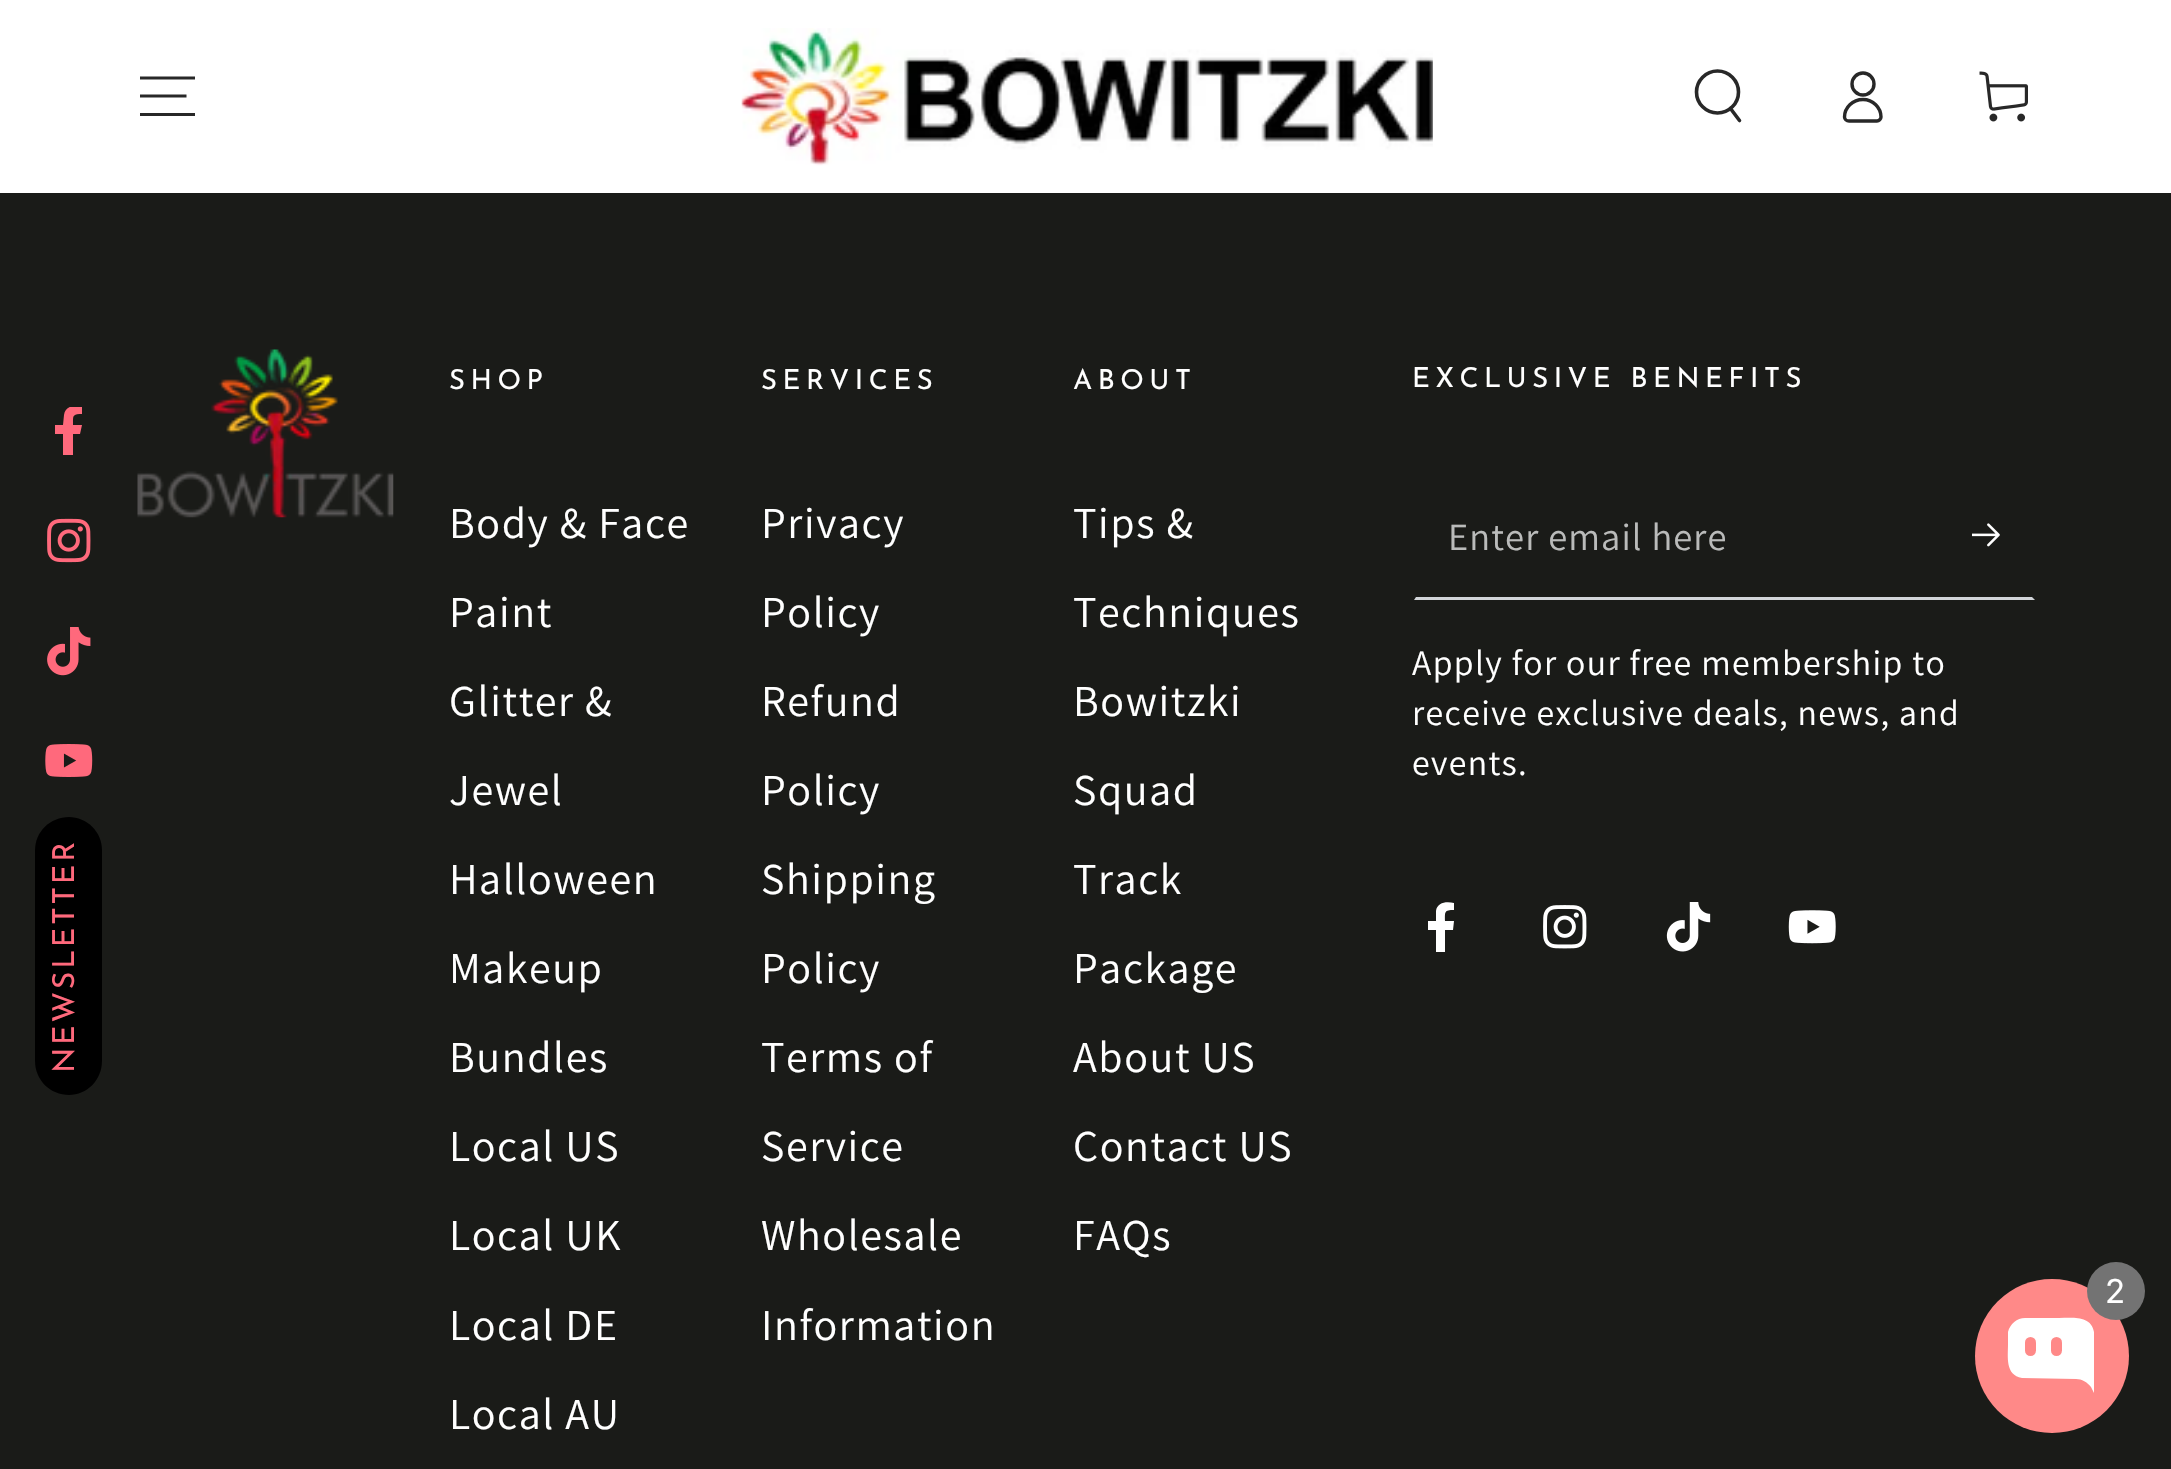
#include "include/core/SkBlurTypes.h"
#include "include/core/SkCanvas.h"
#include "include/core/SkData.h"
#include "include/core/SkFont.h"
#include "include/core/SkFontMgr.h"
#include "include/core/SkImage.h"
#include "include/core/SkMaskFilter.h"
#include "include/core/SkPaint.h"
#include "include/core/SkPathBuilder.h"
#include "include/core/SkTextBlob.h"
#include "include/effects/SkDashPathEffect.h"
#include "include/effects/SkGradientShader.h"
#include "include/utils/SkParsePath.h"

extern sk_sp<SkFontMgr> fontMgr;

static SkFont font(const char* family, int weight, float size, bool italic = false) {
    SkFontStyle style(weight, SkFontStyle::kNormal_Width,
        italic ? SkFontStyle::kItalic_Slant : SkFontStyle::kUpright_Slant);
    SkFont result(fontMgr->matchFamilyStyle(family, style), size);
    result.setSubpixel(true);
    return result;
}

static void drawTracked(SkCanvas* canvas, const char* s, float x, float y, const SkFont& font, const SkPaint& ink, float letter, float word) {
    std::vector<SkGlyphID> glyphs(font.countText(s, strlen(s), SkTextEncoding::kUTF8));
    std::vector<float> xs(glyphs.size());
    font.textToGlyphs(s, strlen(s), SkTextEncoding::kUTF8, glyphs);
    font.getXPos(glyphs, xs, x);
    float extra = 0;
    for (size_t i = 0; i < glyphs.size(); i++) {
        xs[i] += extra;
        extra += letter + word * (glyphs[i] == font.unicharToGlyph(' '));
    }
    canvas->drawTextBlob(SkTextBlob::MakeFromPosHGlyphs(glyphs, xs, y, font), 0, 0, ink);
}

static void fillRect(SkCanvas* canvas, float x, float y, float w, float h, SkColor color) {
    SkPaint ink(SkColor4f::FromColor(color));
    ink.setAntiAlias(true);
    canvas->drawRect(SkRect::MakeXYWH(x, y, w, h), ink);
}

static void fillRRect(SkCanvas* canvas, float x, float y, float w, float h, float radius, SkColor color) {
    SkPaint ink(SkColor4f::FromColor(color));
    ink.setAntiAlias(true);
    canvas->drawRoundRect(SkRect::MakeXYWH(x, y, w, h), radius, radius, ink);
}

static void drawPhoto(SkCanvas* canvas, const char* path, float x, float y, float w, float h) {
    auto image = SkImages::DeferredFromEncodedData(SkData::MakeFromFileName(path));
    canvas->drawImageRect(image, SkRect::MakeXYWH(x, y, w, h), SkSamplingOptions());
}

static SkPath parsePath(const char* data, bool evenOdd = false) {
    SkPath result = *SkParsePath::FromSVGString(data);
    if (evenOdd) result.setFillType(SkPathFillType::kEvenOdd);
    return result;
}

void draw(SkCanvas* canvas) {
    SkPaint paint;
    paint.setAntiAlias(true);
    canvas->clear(0xFF1A1B18);
    canvas->save();
    canvas->clipRect(SkRect::MakeXYWH(44, 407, 50, 50));
    paint.setColor(0xFFFF697C);
    canvas->drawPath(parsePath("M80 434L82 425H73C73 416 72 414 82 414V406C74 405 65 406 64 415L63 425H55V434H63V455H73V434Z"), paint);
    canvas->restore();
    drawPhoto(canvas, "assets/img1.png", 47, 518, 44, 45);
    drawPhoto(canvas, "assets/img2.png", 47, 627, 44, 49);
    drawPhoto(canvas, "assets/img3.png", 45, 744, 48, 33);
    paint.setColor(0xFF000000);
    canvas->drawPath(parsePath("M69 1095C50 1095 35 1080 35 1061V850C35 832 50 817 69 817C87 817 102 832 102 850V1061C102 1080 87 1095 69 1095Z"), paint);
    SkFont font1 = font("Josefin Sans", 400, 30.25f);
    paint.setColor(0xFFFF697C);
    canvas->save();
    canvas->rotate(-90, 74, 1073);
    drawTracked(canvas, "NEWSLETTER", 74, 1073, font1, paint, 2.75f, 0);
    canvas->restore();
    fillRect(canvas, 0, 0, 2171, 193, 0xFFFFFFFF);
    paint.setStroke(true);
    paint.setStrokeWidth(3.1f);
    paint.setColor(0xFF282828);
    canvas->drawPath(parsePath("M140 114.5H195M140 96H186.5M140 78H195"), paint);
    drawPhoto(canvas, "assets/img4.png", 741, 28, 692, 138);
    paint.setStrokeWidth(3.6f);
    canvas->drawCircle(1717.5f, 92, 21, paint);
    paint.setStrokeCap(SkPaint::kRound_Cap);
    canvas->drawPath(parsePath("M1730.5 108.5L1739.5 120.5"), paint);
    paint.setStrokeWidth(3.4f);
    paint.setStrokeCap(SkPaint::kButt_Cap);
    canvas->drawPath(parsePath("M1863 99.5C1852.5 99.5 1844.5 107.5 1844.5 117C1844.5 119 1846.5 121 1849 121H1877C1879 121 1881 119 1881 117C1881 107.5 1873 99.5 1863 99.5Z"), paint);
    canvas->drawCircle(1863, 84, 11, paint);
    drawPhoto(canvas, "assets/img5.png", 1979, 71, 49, 51);
    drawPhoto(canvas, "assets/img6.png", 137, 349, 257, 169);
    SkFont font2 = font("Josefin Sans", 400, 27.5f);
    paint.setStroke(false);
    paint.setColor(0xFFFFFFFF);
    drawTracked(canvas, "SHOP", 449, 389, font2, paint, 5.5f, 0);
    SkFont font3 = font("Assistant", 400, 44);
    drawTracked(canvas, "Body & Face", 449, 538, font3, paint, 1.6f, 0);
    drawTracked(canvas, "Paint", 449, 627, font3, paint, 1.6f, 0);
    drawTracked(canvas, "Glitter &", 449, 716, font3, paint, 1.6f, 0);
    drawTracked(canvas, "Jewel", 449, 805, font3, paint, 1.6f, 0);
    drawTracked(canvas, "Halloween", 449, 894, font3, paint, 1.6f, 0);
    drawTracked(canvas, "Makeup", 449, 983, font3, paint, 1.6f, 0);
    drawTracked(canvas, "Bundles", 449, 1072, font3, paint, 1.6f, 0);
    drawTracked(canvas, "Local US", 449, 1161, font3, paint, 1.6f, 0);
    drawTracked(canvas, "Local UK", 449, 1250, font3, paint, 1.6f, 0);
    drawTracked(canvas, "Local DE", 449, 1340, font3, paint, 1.6f, 0);
    drawTracked(canvas, "Local AU", 449, 1429, font3, paint, 1.6f, 0);
    drawTracked(canvas, "SERVICES", 761, 389, font2, paint, 5.5f, 0);
    drawTracked(canvas, "Privacy", 761, 538, font3, paint, 1.6f, 0);
    drawTracked(canvas, "Policy", 761, 627, font3, paint, 1.6f, 0);
    drawTracked(canvas, "Refund", 761, 716, font3, paint, 1.6f, 0);
    drawTracked(canvas, "Policy", 761, 805, font3, paint, 1.6f, 0);
    drawTracked(canvas, "Shipping", 761, 894, font3, paint, 1.6f, 0);
    drawTracked(canvas, "Policy", 761, 983, font3, paint, 1.6f, 0);
    drawTracked(canvas, "Terms of", 761, 1072, font3, paint, 1.6f, 0);
    drawTracked(canvas, "Service", 761, 1161, font3, paint, 1.6f, 0);
    drawTracked(canvas, "Wholesale", 761, 1250, font3, paint, 1.6f, 0);
    drawTracked(canvas, "Information", 761, 1340, font3, paint, 1.6f, 0);
    drawTracked(canvas, "ABOUT", 1073, 389, font2, paint, 5.5f, 0);
    drawTracked(canvas, "Tips &", 1073, 538, font3, paint, 1.6f, 0);
    drawTracked(canvas, "Techniques", 1073, 627, font3, paint, 1.6f, 0);
    drawTracked(canvas, "Bowitzki", 1073, 716, font3, paint, 1.6f, 0);
    drawTracked(canvas, "Squad", 1073, 805, font3, paint, 1.6f, 0);
    drawTracked(canvas, "Track", 1073, 894, font3, paint, 1.6f, 0);
    drawTracked(canvas, "Package", 1073, 983, font3, paint, 1.6f, 0);
    drawTracked(canvas, "About US", 1073, 1072, font3, paint, 1.6f, 0);
    drawTracked(canvas, "Contact US", 1073, 1161, font3, paint, 1.6f, 0);
    drawTracked(canvas, "FAQs", 1073, 1250, font3, paint, 1.6f, 0);
    drawTracked(canvas, "EXCLUSIVE BENEFITS", 1412, 387, font2, paint, 5.5f, 0);
    paint.setColor(0xFFD2D5D9);
    canvas->drawPath(parsePath("M2035 600H1414L1416 597H2032Z"), paint);
    SkFont font4 = font("Assistant", 400, 38.5f);
    paint.setColor(0xFFBABBBA);
    drawTracked(canvas, "Enter email here", 1448, 550, font4, paint, 1.1f, 0);
    drawPhoto(canvas, "assets/img7.png", 1972, 523, 28, 24);
    SkFont font5 = font("Assistant", 400, 35.75f);
    paint.setColor(0xFFFFFFFF);
    drawTracked(canvas, "Apply for our free membership to", 1412, 675, font5, paint, 1.4f, 0);
    drawTracked(canvas, "receive exclusive deals, news, and", 1412, 725, font5, paint, 1.4f, 0);
    drawTracked(canvas, "events.", 1412, 775, font5, paint, 1.4f, 0);
    canvas->drawPath(parsePath("M1453 930L1454 921H1445C1445 912 1444 910 1454 910V903C1447 901 1437 902 1436 911V921H1428V930H1436V952H1445V930Z"), paint);
    drawPhoto(canvas, "assets/img8.png", 1543, 905, 44, 44);
    drawPhoto(canvas, "assets/img9.png", 1666, 902, 45, 50);
    drawPhoto(canvas, "assets/img10.png", 1788, 910, 48, 34);
    paint.setColor(0xFFFF8988);
    canvas->drawCircle(2052, 1356, 77, paint);
    paint.setColor(0xFFFFFFFF);
    canvas->drawPath(parsePath("M2025 1318C2017 1318 2010 1324 2008 1332V1344C2008 1357 2005 1375 2022 1378L2076 1379C2082 1379 2087 1382 2091 1387L2094 1393V1392V1332C2091 1315 2072 1318 2059 1318Z", true), paint);
    paint.setColor(0xFF737373);
    canvas->drawCircle(2116, 1291, 29, paint);
    SkFont font6 = font("Inter", 400, 33);
    paint.setColor(0xFFFFFFFF);
    drawTracked(canvas, "2", 2105, 1303, font6, paint, 1.6f, 0);
    fillRRect(canvas, 2025, 1337, 11, 19, 5.5f, 0xFFFF8988);
    fillRRect(canvas, 2051, 1337, 11, 19, 5.5f, 0xFFFF8988);
}
